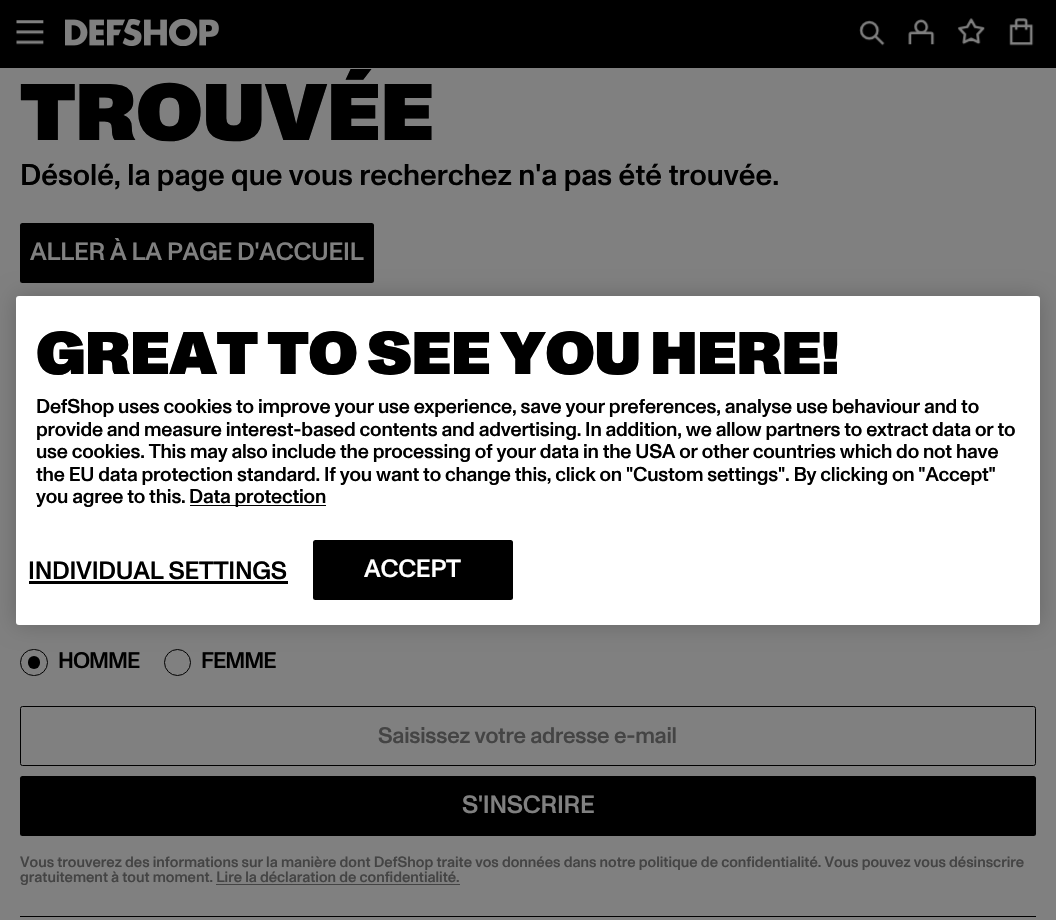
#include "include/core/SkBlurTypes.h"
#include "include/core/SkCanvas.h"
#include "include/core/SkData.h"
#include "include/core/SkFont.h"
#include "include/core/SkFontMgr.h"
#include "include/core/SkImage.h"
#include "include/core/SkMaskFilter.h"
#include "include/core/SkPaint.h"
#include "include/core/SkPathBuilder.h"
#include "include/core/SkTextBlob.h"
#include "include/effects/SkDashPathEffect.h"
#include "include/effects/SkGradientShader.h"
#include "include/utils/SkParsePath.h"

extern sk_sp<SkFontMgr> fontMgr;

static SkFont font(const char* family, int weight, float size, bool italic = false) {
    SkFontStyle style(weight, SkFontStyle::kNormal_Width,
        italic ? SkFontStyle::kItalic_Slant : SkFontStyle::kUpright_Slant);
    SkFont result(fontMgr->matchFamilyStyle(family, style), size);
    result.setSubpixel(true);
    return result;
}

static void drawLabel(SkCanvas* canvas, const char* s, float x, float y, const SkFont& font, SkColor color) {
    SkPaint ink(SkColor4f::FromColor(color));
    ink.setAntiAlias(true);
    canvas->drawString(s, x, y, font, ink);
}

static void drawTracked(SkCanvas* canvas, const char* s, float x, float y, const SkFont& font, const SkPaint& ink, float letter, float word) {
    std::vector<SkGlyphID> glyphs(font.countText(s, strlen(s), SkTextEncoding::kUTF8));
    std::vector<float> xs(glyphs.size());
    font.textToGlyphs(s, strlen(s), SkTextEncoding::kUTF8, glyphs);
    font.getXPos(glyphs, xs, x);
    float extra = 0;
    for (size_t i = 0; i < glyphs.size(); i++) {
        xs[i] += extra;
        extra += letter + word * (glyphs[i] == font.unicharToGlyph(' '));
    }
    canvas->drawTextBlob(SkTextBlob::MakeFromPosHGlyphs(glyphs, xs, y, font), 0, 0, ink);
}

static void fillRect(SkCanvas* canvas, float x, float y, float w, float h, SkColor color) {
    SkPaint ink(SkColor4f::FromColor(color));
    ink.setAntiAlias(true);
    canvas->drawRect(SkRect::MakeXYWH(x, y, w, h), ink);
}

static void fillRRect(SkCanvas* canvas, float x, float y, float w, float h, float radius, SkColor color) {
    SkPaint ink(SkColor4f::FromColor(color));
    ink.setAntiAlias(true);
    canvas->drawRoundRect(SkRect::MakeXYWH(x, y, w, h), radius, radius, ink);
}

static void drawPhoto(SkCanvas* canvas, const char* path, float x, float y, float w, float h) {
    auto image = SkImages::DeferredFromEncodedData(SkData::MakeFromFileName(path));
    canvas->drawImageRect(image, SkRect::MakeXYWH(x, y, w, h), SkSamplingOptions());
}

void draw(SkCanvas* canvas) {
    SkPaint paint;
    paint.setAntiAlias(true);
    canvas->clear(0xFF808080);
    fillRect(canvas, 0, 0, 1056, 68, 0xFF000000);
    drawPhoto(canvas, "assets/img1.png", 16, 20, 28, 25);
    drawPhoto(canvas, "assets/img2.png", 65, 19, 154, 27);
    drawPhoto(canvas, "assets/img3.png", 859, 20, 26, 26);
    drawPhoto(canvas, "assets/img4.png", 908, 19, 27, 26);
    drawPhoto(canvas, "assets/img5.png", 957, 18, 28, 27);
    drawPhoto(canvas, "assets/img6.png", 1009, 18, 25, 28);
    SkFont font1 = font("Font", 900, 80);
    drawLabel(canvas, "TROUVÉE", 20, 140, font1, 0xFF000000);
    SkFont font2 = font("Font", 500, 30);
    drawLabel(canvas, "Désolé, la page que vous recherchez n'a pas été trouvée.", 20, 185, font2, 0xFF000000);
    fillRRect(canvas, 20, 223, 354, 60, 2.5f, 0xFF000000);
    SkFont font3 = font("Font", 500, 25);
    paint.setColor(0xFF808080);
    drawTracked(canvas, "ALLER À LA PAGE D'ACCUEIL", 30, 260, font3, paint, -0.25f, 0);
    paint.setStroke(true);
    paint.setStrokeWidth(1);
    paint.setColor(0xFF000000);
    canvas->drawRoundRect(SkRect::MakeXYWH(20.5f, 649.5f, 27, 26), 13, 13, paint);
    fillRRect(canvas, 28, 656, 12, 13, 6, 0xFF000000);
    SkFont font4 = font("Font", 500, 22.5f);
    paint.setStroke(false);
    drawTracked(canvas, "HOMME", 58, 668, font4, paint, -1, 0);
    paint.setStroke(true);
    canvas->drawCircle(177.5f, 662.5f, 13, paint);
    paint.setStroke(false);
    drawTracked(canvas, "FEMME", 201, 668, font4, paint, -1, 0);
    paint.setStroke(true);
    canvas->drawRoundRect(SkRect::MakeXYWH(20.5f, 706.5f, 1015, 59), 2, 2, paint);
    paint.setStroke(false);
    paint.setColor(0xFF444444);
    drawTracked(canvas, "Saisissez votre adresse e-mail", 378, 743, font4, paint, -0.25f, 0);
    fillRRect(canvas, 20, 776, 1016, 60, 2.5f, 0xFF000000);
    paint.setColor(0xFF808080);
    drawTracked(canvas, "S'INSCRIRE", 462, 813, font3, paint, -0.25f, 0);
    SkFont font5 = font("Font", 500, 15);
    drawLabel(canvas, "Vous trouverez des informations sur la manière dont DefShop traite vos données dans notre politique de confidentialité. Vous pouvez vous désinscrire", 20, 867, font5, 0xFF444444);
    drawLabel(canvas, "gratuitement à tout moment. Lire la déclaration de confidentialité.", 20, 882, font5, 0xFF444444);
    fillRect(canvas, 216, 884, 244, 1, 0xFF444444);
    fillRect(canvas, 20, 916, 1016, 1, 0xFF000000);
    paint.setColor(0x33000000);
    paint.setMaskFilter(SkMaskFilter::MakeBlur(kNormal_SkBlurStyle, 11));
    canvas->drawRoundRect(SkRect::MakeXYWH(16, 296, 1024, 329), 3, 3, paint);
    paint.setMaskFilter(nullptr);
    fillRRect(canvas, 16, 296, 1024, 329, 3, 0xFFFFFFFF);
    SkFont font6 = font("Font", 900, 60);
    paint.setColor(0xFF000000);
    drawTracked(canvas, "GREAT TO SEE YOU HERE!", 36, 374, font6, paint, -0.6f, 0);
    SkFont font7 = font("Font", 500, 20);
    drawTracked(canvas, "DefShop uses cookies to improve your use experience, save your preferences, analyse use behaviour and to", 36, 413, font7, paint, -0.2f, 0);
    drawTracked(canvas, "provide and measure interest-based contents and advertising. In addition, we allow partners to extract data or to", 36, 436, font7, paint, -0.2f, 0);
    drawTracked(canvas, "use cookies. This may also include the processing of your data in the USA or other countries which do not have", 36, 458, font7, paint, -0.2f, 0);
    drawTracked(canvas, "the EU data protection standard. If you want to change this, click on \"Custom settings\". By clicking on \"Accept\"", 36, 481, font7, paint, -0.2f, 0);
    drawTracked(canvas, "you agree to this.", 36, 503, font7, paint, -0.2f, 0);
    fillRect(canvas, 190, 505, 136, 1, 0xFF000000);
    drawTracked(canvas, "Data protection", 189, 503, font7, paint, -0.2f, 0);
    drawTracked(canvas, "INDIVIDUAL SETTINGS", 28, 579, font3, paint, -0.25f, 0);
    fillRect(canvas, 29, 581, 259, 3, 0xFF000000);
    fillRRect(canvas, 313, 540, 200, 60, 2.5f, 0xFF000000);
    paint.setColor(0xFFFFFFFF);
    drawTracked(canvas, "ACCEPT", 364, 577, font3, paint, -0.25f, 0);
}
